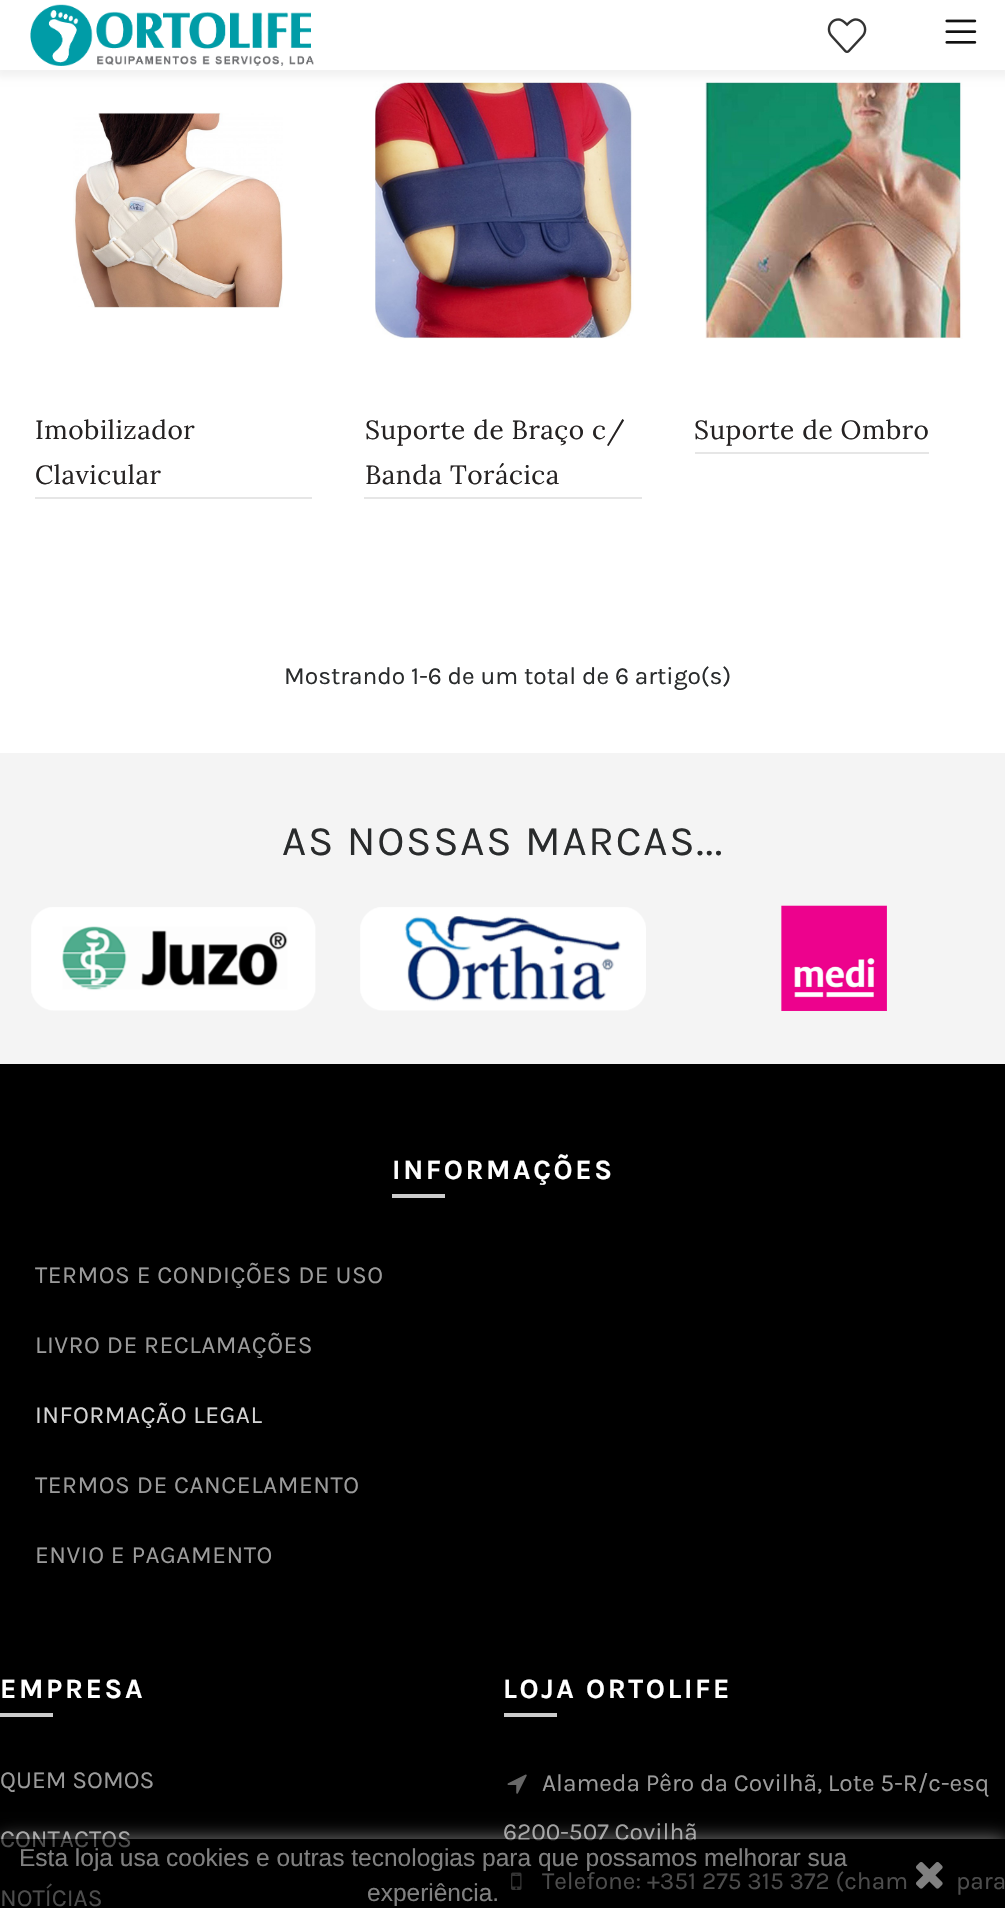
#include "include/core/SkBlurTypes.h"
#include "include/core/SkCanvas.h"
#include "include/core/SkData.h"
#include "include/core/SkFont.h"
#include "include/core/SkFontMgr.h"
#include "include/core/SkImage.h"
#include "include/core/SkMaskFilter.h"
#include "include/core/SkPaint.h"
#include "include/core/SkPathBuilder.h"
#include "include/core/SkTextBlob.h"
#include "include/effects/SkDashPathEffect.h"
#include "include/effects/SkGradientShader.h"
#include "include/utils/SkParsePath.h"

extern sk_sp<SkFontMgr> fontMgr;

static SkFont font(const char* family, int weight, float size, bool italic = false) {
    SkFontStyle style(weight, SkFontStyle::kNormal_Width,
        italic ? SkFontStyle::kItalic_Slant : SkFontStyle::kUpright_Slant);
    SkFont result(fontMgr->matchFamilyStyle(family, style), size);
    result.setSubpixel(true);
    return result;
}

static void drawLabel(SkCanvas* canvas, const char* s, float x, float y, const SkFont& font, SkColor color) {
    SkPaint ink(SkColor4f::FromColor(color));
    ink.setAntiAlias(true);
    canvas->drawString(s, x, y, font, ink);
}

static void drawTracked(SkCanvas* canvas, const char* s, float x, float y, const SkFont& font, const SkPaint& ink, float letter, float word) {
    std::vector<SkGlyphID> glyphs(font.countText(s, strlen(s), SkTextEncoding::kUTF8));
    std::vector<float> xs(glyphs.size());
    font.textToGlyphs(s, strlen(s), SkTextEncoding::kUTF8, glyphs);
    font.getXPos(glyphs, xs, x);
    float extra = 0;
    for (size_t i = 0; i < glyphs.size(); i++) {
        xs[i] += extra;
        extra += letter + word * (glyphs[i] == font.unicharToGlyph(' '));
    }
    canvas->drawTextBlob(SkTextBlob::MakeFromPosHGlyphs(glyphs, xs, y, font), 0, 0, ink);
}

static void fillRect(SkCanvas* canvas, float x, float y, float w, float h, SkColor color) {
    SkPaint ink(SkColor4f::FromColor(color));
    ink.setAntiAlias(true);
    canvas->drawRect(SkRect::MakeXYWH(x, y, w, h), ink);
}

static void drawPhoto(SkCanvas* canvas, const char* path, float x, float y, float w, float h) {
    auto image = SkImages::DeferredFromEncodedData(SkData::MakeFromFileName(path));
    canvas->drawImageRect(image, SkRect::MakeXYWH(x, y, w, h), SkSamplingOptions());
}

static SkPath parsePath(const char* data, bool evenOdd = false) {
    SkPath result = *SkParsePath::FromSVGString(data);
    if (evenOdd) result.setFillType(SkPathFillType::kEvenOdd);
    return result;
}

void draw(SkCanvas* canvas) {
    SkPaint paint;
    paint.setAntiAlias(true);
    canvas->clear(0xFFFFFFFF);
    drawPhoto(canvas, "assets/img5.png", 375, 80, 259, 259);
    drawPhoto(canvas, "assets/img6.png", 705, 81, 258, 258);
    paint.setColor(0x0D000000);
    paint.setMaskFilter(SkMaskFilter::MakeBlur(kNormal_SkBlurStyle, 3.5f));
    canvas->drawRect(SkRect::MakeXYWH(-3, -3, 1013, 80), paint);
    paint.setMaskFilter(nullptr);
    fillRect(canvas, 0, 0, 1005, 70, 0xFFFFFFFF);
    drawPhoto(canvas, "assets/img1.png", 30, 4, 284, 62);
    drawPhoto(canvas, "assets/img2.png", 827, 18, 40, 35);
    drawPhoto(canvas, "assets/img3.png", 945, 19, 32, 25);
    drawPhoto(canvas, "assets/img4.png", 73, 112, 210, 196);
    fillRect(canvas, 35, 497, 277, 2, 0xFFE6E6E6);
    SkFont font1 = font("Lora", 400, 26.25f);
    paint.setColor(0xFF252222);
    drawTracked(canvas, "Imobilizador", 35, 439, font1, paint, 0.5f, 0);
    drawTracked(canvas, "Clavicular", 35, 484, font1, paint, 0.5f, 0);
    fillRect(canvas, 364, 497, 278, 2, 0xFFE6E6E6);
    drawTracked(canvas, "Suporte de Braço c/", 365, 439, font1, paint, 0.5f, 0);
    drawTracked(canvas, "Banda Torácica", 365, 484, font1, paint, 0.5f, 0);
    fillRect(canvas, 695, 452, 234, 2, 0xFFE6E6E6);
    drawTracked(canvas, "Suporte de Ombro", 694, 439, font1, paint, 0.5f, 0);
    SkFont font2 = font("Karla", 400, 24.5f);
    drawLabel(canvas, "Mostrando 1-6 de um total de 6 artigo(s)", 284, 684, font2, 0xFF292B2C);
    fillRect(canvas, 0, 753, 1005, 311, 0xFFF4F4F4);
    SkFont font3 = font("Karla", 400, 42);
    paint.setColor(0xFF292B2C);
    drawTracked(canvas, "AS NOSSAS MARCAS...", 282, 855, font3, paint, 1.75f, 0);
    drawPhoto(canvas, "assets/img7.png", 31, 907, 285, 104);
    drawPhoto(canvas, "assets/img8.png", 360, 907, 286, 104);
    drawPhoto(canvas, "assets/img9.png", 781, 905, 106, 106);
    fillRect(canvas, 0, 1064, 1005, 844, 0xFF000000);
    SkFont font4 = font("Karla", 700, 28);
    paint.setColor(0xFFFFFFFF);
    drawTracked(canvas, "INFORMAÇÕES", 392, 1179, font4, paint, 2.6f, 0);
    fillRect(canvas, 392, 1194, 53, 4, 0xFFCCCCCC);
    paint.setColor(0xFF9B9B9B);
    drawTracked(canvas, "TERMOS E CONDIÇÕES DE USO", 35, 1283, font2, paint, 0.5f, 0);
    drawTracked(canvas, "LIVRO DE RECLAMAÇÕES", 35, 1353, font2, paint, 0.5f, 0);
    paint.setColor(0xFFD4D4D4);
    drawTracked(canvas, "INFORMAÇÃO LEGAL", 35, 1423, font2, paint, 0.5f, 0);
    paint.setColor(0xFF9B9B9B);
    drawTracked(canvas, "TERMOS DE CANCELAMENTO", 35, 1493, font2, paint, 0.5f, 0);
    drawTracked(canvas, "ENVIO E PAGAMENTO", 35, 1563, font2, paint, 0.5f, 0);
    paint.setColor(0xFFFFFFFF);
    drawTracked(canvas, "EMPRESA", 0, 1698, font4, paint, 2.6f, 0);
    fillRect(canvas, 0, 1713, 53, 4, 0xFFCCCCCC);
    drawLabel(canvas, "QUEM SOMOS", 0, 1788, font2, 0xFF9B9B9B);
    drawLabel(canvas, "CONTACTOS", 0, 1847, font2, 0xFF9B9B9B);
    drawLabel(canvas, "NOTÍCIAS", 0, 1906, font2, 0xFF9B9B9B);
    drawTracked(canvas, "LOJA ORTOLIFE", 503, 1698, font4, paint, 2.6f, 0);
    fillRect(canvas, 504, 1713, 53, 4, 0xFFCCCCCC);
    drawPhoto(canvas, "assets/img10.png", 507, 1774, 20, 20);
    drawLabel(canvas, "Alameda Pêro da Covilhã, Lote 5-R/c-esq", 542, 1791, font2, 0xFF9B9B9B);
    drawLabel(canvas, "6200-507 Covilhã", 503, 1840, font2, 0xFF9B9B9B);
    drawPhoto(canvas, "assets/img11.png", 511, 1872, 11, 18);
    drawLabel(canvas, "Telefone: +351 275 315 372 (cham", 542, 1889, font2, 0xFF9B9B9B);
    drawLabel(canvas, "para", 956, 1889, font2, 0xFF9B9B9B);
    canvas->save();
    canvas->clipPath(parsePath("M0 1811H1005V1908H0ZM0 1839H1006V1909H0Z", true), true);
    paint.setColor(0x80FFFFFF);
    paint.setMaskFilter(SkMaskFilter::MakeBlur(kNormal_SkBlurStyle, 9));
    canvas->drawRect(SkRect::MakeXYWH(0, 1839, 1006, 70), paint);
    paint.setMaskFilter(nullptr);
    canvas->restore();
    fillRect(canvas, 0, 1839, 1005, 68, 0x80000000);
    SkFont font5 = font("Liberation Sans", 400, 24.5f);
    drawLabel(canvas, "Esta loja usa cookies e outras tecnologias para que possamos melhorar sua", 19, 1866, font5, 0xFF808080);
    drawLabel(canvas, "experiência.", 367, 1901, font5, 0xFF808080);
    drawPhoto(canvas, "assets/img12.png", 916, 1862, 27, 27);
}
